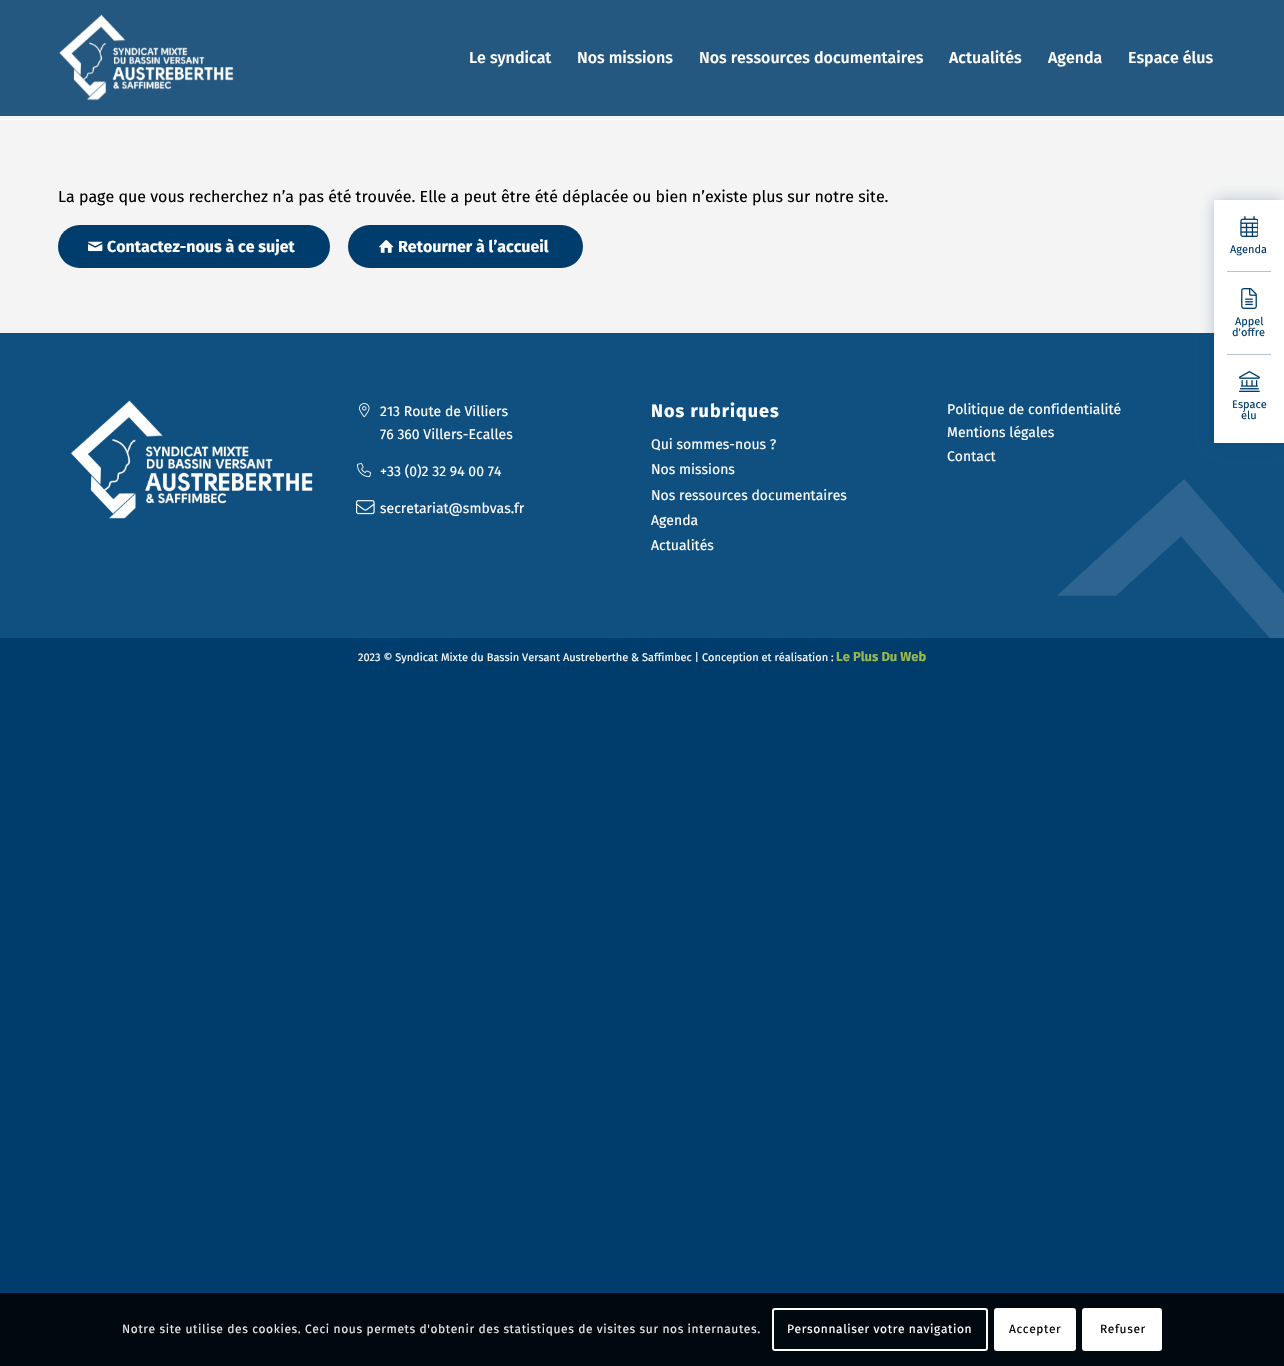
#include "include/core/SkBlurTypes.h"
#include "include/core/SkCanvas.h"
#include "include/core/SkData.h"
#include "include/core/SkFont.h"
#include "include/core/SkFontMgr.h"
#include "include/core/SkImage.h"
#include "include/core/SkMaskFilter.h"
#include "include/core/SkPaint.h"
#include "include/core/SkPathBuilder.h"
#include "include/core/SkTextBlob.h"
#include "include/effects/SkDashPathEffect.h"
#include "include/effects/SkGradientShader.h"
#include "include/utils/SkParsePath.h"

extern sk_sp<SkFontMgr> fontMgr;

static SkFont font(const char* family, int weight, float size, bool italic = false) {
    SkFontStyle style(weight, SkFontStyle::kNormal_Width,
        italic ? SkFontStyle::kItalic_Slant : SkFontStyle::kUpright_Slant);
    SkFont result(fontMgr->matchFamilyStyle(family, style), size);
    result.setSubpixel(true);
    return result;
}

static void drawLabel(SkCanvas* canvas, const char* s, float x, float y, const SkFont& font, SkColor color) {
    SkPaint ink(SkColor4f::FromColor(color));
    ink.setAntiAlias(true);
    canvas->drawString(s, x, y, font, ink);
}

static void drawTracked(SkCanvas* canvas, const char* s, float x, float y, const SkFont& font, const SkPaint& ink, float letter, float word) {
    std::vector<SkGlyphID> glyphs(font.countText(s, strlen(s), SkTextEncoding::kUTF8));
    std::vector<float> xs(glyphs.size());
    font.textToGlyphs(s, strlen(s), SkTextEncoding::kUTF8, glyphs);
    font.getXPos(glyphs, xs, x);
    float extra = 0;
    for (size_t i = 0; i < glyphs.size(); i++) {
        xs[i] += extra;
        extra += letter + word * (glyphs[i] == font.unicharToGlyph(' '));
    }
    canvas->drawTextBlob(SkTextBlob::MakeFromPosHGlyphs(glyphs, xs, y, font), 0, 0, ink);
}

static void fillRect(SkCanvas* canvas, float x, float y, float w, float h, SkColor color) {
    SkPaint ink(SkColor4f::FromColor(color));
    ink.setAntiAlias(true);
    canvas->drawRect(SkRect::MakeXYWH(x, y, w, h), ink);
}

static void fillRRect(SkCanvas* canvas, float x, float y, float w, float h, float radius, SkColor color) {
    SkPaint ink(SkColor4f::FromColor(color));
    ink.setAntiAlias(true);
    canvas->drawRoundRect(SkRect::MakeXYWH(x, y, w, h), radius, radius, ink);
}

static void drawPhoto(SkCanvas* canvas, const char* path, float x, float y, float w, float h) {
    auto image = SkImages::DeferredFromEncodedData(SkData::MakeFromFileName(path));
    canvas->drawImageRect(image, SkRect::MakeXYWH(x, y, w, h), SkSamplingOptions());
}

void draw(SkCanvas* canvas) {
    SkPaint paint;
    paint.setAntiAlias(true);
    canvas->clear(0xFF003D6C);
    fillRect(canvas, 0, 116, 1284, 217, 0xFFF4F4F4);
    fillRect(canvas, 0, 0, 1284, 116, 0xFF255880);
    drawPhoto(canvas, "assets/img1.png", 59, 14, 175, 87);
    SkFont font1 = font("Fira Sans", 500, 16);
    drawLabel(canvas, "Le syndicat", 469, 63, font1, 0xFFFFFFFF);
    drawLabel(canvas, "Nos missions", 577, 63, font1, 0xFFFFFFFF);
    drawLabel(canvas, "Nos ressources documentaires", 699, 63, font1, 0xFFFFFFFF);
    drawLabel(canvas, "Actualités", 949, 63, font1, 0xFFFFFFFF);
    drawLabel(canvas, "Agenda", 1048, 63, font1, 0xFFFFFFFF);
    drawLabel(canvas, "Espace élus", 1128, 63, font1, 0xFFFFFFFF);
    fillRect(canvas, 0, 119, 1284, 1, 0xFFFFFFFF);
    SkFont font2 = font("Fira Sans", 400, 16);
    drawLabel(canvas, "La page que vous recherchez n’a pas été trouvée. Elle a peut être été déplacée ou bien n’existe plus sur notre site.", 58, 202, font2, 0xFF000000);
    fillRRect(canvas, 58, 225, 272, 43, 21.5f, 0xFF003D6C);
    drawPhoto(canvas, "assets/img2.png", 88, 241, 15, 11);
    SkFont font3 = font("Fira Sans", 700, 16);
    drawLabel(canvas, "Contactez-nous à ce sujet", 107, 252, font3, 0xFFFFFFFF);
    fillRRect(canvas, 348, 225, 235, 43, 21.5f, 0xFF003D6C);
    drawPhoto(canvas, "assets/img3.png", 379, 240, 15, 13);
    drawLabel(canvas, "Retourner à l’accueil", 398, 252, font3, 0xFFFFFFFF);
    fillRect(canvas, 0, 333, 1284, 305, 0xFF105081);
    paint.setColor(0x4D003D6C);
    paint.setMaskFilter(SkMaskFilter::MakeBlur(kNormal_SkBlurStyle, 7.5f));
    canvas->drawRect(SkRect::MakeXYWH(1215, 201, 68, 241), paint);
    paint.setMaskFilter(nullptr);
    fillRect(canvas, 1214, 200, 70, 243, 0xFFFFFFFF);
    drawPhoto(canvas, "assets/img4.png", 1240, 216, 18, 21);
    SkFont font4 = font("Fira Sans", 400, 11);
    drawLabel(canvas, "Agenda", 1230, 253, font4, 0xFF003D6C);
    fillRect(canvas, 1227, 271, 44, 1, 0xFFB3C5D3);
    drawPhoto(canvas, "assets/img5.png", 1241, 288, 16, 21);
    drawLabel(canvas, "Appel", 1235, 325, font4, 0xFF003D6C);
    drawLabel(canvas, "d'offre", 1232, 336, font4, 0xFF003D6C);
    fillRect(canvas, 1227, 354, 44, 1, 0xFFB3C5D3);
    drawPhoto(canvas, "assets/img6.png", 1238, 371, 22, 21);
    drawLabel(canvas, "Espace", 1232, 408, font4, 0xFF003D6C);
    drawLabel(canvas, "élu", 1241, 419, font4, 0xFF003D6C);
    drawPhoto(canvas, "assets/img7.png", 71, 400, 242, 119);
    drawPhoto(canvas, "assets/img8.png", 359, 403, 11, 15);
    SkFont font5 = font("Fira Sans", 400, 14);
    drawLabel(canvas, "213 Route de Villiers", 380, 416, font5, 0xFFFFFFFF);
    drawLabel(canvas, "76 360 Villers-Ecalles", 380, 439, font5, 0xFFFFFFFF);
    drawPhoto(canvas, "assets/img9.png", 357, 463, 14, 15);
    drawLabel(canvas, "+33 (0)2 32 94 00 74", 380, 476, font5, 0xFFFFFFFF);
    drawPhoto(canvas, "assets/img10.png", 356, 500, 19, 15);
    drawLabel(canvas, "secretariat@smbvas.fr", 380, 513, font5, 0xFFFFFFFF);
    SkFont font6 = font("Fira Sans", 700, 18);
    paint.setColor(0xFFFFFFFF);
    drawTracked(canvas, "Nos rubriques", 651, 417, font6, paint, 1, 0);
    drawLabel(canvas, "Qui sommes-nous ?", 651, 449, font5, 0xFFFFFFFF);
    drawLabel(canvas, "Nos missions", 651, 474, font5, 0xFFFFFFFF);
    drawLabel(canvas, "Nos ressources documentaires", 651, 500, font5, 0xFFFFFFFF);
    drawLabel(canvas, "Agenda", 651, 525, font5, 0xFFFFFFFF);
    drawLabel(canvas, "Actualités", 651, 550, font5, 0xFFFFFFFF);
    drawLabel(canvas, "Politique de confidentialité", 947, 414, font5, 0xFFFFFFFF);
    drawLabel(canvas, "Mentions légales", 947, 437, font5, 0xFFFFFFFF);
    drawLabel(canvas, "Contact", 947, 461, font5, 0xFFFFFFFF);
    drawPhoto(canvas, "assets/img11.png", 1057, 479, 227, 159);
    drawLabel(canvas, "2023 © Syndicat Mixte du Bassin Versant Austreberthe & Saffimbec | Conception et réalisation :", 358, 661, font4, 0xFFFFFFFF);
    SkFont font7 = font("Fira Sans", 700, 13);
    drawLabel(canvas, "Le Plus Du Web", 836, 661, font7, 0xFF99B94C);
    fillRect(canvas, 0, 1293, 1284, 73, 0xFF000910);
    SkFont font8 = font("Fira Sans", 400, 12);
    paint.setColor(0xFFE6E6E7);
    drawTracked(canvas, "Notre site utilise des cookies. Ceci nous permets d'obtenir des statistiques de visites sur nos internautes.", 122, 1333, font8, paint, 0.6f, 0);
    paint.setStroke(true);
    paint.setStrokeWidth(2);
    paint.setColor(0xFFFFFFFF);
    canvas->drawRoundRect(SkRect::MakeXYWH(773, 1309, 214, 41), 2, 2, paint);
    paint.setStroke(false);
    drawTracked(canvas, "Personnaliser votre navigation", 787, 1333, font8, paint, 0.6f, 0);
    fillRRect(canvas, 994, 1308, 82, 43, 3, 0xFFFFFFFF);
    paint.setColor(0xFF000000);
    drawTracked(canvas, "Accepter", 1009, 1333, font8, paint, 0.6f, 0);
    paint.setColor(0xFFFFFFFF);
    canvas->drawRoundRect(SkRect::MakeXYWH(1083, 1309, 78, 41), 2, 2, paint);
    paint.setStroke(true);
    canvas->drawRoundRect(SkRect::MakeXYWH(1083, 1309, 78, 41), 2, 2, paint);
    paint.setStroke(false);
    paint.setColor(0xFF000000);
    drawTracked(canvas, "Refuser", 1100, 1333, font8, paint, 0.6f, 0);
}
